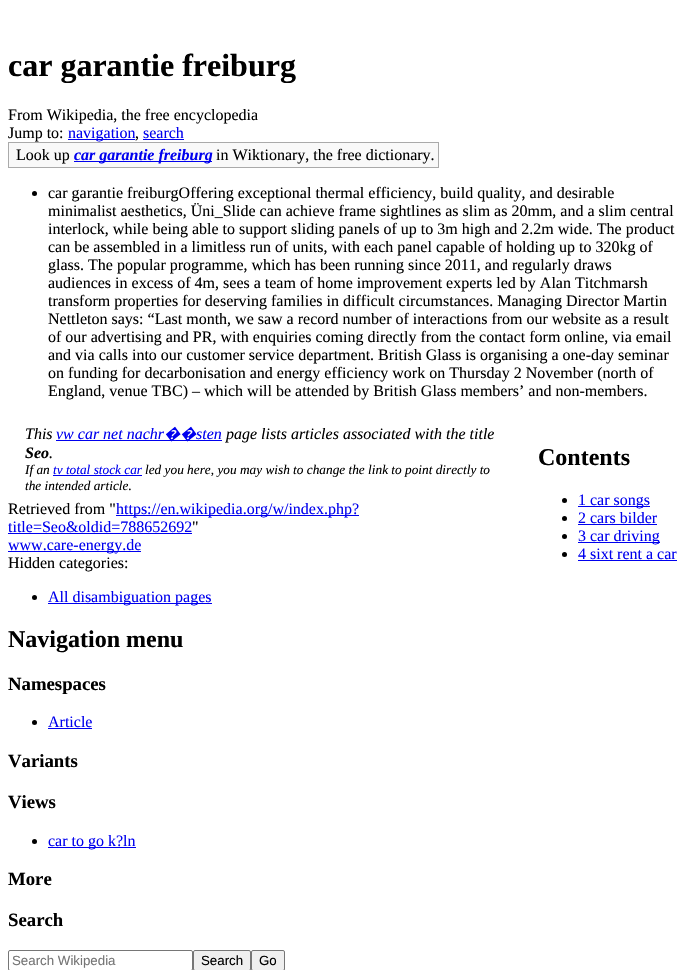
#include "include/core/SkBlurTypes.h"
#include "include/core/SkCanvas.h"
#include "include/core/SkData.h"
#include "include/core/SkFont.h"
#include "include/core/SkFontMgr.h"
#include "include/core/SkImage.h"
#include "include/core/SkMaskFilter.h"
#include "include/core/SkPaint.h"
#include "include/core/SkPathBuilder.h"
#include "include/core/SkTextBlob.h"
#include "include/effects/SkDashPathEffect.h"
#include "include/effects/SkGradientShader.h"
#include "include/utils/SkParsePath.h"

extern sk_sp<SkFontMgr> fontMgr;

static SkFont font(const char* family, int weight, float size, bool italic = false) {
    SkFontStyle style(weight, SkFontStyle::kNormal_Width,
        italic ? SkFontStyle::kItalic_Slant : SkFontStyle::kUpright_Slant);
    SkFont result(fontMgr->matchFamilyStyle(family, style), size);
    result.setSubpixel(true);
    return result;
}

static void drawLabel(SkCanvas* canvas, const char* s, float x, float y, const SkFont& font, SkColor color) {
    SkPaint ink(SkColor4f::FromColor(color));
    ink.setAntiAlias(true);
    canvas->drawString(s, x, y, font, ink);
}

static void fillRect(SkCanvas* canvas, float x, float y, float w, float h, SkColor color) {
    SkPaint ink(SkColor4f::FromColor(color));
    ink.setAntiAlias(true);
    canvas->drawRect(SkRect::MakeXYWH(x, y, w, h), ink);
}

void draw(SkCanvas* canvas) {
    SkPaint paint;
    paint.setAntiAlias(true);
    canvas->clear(0xFFFFFFFF);
    SkFont font1 = font("Liberation Serif", 700, 32);
    drawLabel(canvas, "car garantie freiburg", 8, 76, font1, 0xFF000000);
    SkFont font2 = font("Liberation Serif", 400, 16);
    drawLabel(canvas, "From Wikipedia, the free encyclopedia", 8, 120, font2, 0xFF000000);
    drawLabel(canvas, "Jump to:", 8, 138, font2, 0xFF000000);
    fillRect(canvas, 68, 139, 67, 1, 0xFF0000EE);
    drawLabel(canvas, "navigation", 68, 138, font2, 0xFF0000EE);
    drawLabel(canvas, ",", 135, 138, font2, 0xFF000000);
    drawLabel(canvas, "search", 143, 138, font2, 0xFF0000EE);
    fillRect(canvas, 143, 139, 41, 1, 0xFF0000EE);
    paint.setColor(0xFFF9F9F9);
    canvas->drawRect(SkRect::MakeXYWH(8.5f, 142.5f, 430, 25), paint);
    paint.setStroke(true);
    paint.setStrokeWidth(1);
    paint.setColor(0xFFAAAAAA);
    canvas->drawRect(SkRect::MakeXYWH(8.5f, 142.5f, 430, 25), paint);
    drawLabel(canvas, "Look up", 16, 160, font2, 0xFF000000);
    fillRect(canvas, 74, 161, 138, 1, 0xFF0000EE);
    SkFont font3 = font("Liberation Serif", 700, 16, true);
    drawLabel(canvas, "car garantie freiburg", 74, 160, font3, 0xFF0000EE);
    drawLabel(canvas, "in Wiktionary, the free dictionary.", 216, 160, font2, 0xFF000000);
    paint.setStroke(false);
    paint.setColor(0xFF000000);
    canvas->drawCircle(34.5f, 193.5f, 2.5f, paint);
    drawLabel(canvas, "car garantie freiburgOffering exceptional thermal efficiency, build quality, and desirable", 48, 198, font2, 0xFF000000);
    drawLabel(canvas, "minimalist aesthetics, Üni_Slide can achieve frame sightlines as slim as 20mm, and a slim central", 48, 216, font2, 0xFF000000);
    drawLabel(canvas, "interlock, while being able to support sliding panels of up to 3m high and 2.2m wide. The product", 48, 234, font2, 0xFF000000);
    drawLabel(canvas, "can be assembled in a limitless run of units, with each panel capable of holding up to 320kg of", 48, 252, font2, 0xFF000000);
    drawLabel(canvas, "glass. The popular programme, which has been running since 2011, and regularly draws", 48, 270, font2, 0xFF000000);
    drawLabel(canvas, "audiences in excess of 4m, sees a team of home improvement experts led by Alan Titchmarsh", 48, 288, font2, 0xFF000000);
    drawLabel(canvas, "transform properties for deserving families in difficult circumstances. Managing Director Martin", 48, 306, font2, 0xFF000000);
    drawLabel(canvas, "Nettleton says: “Last month, we saw a record number of interactions from our website as a result", 48, 324, font2, 0xFF000000);
    drawLabel(canvas, "of our advertising and PR, with enquiries coming directly from the contact form online, via email", 48, 342, font2, 0xFF000000);
    drawLabel(canvas, "and via calls into our customer service department. British Glass is organising a one-day seminar", 48, 360, font2, 0xFF000000);
    drawLabel(canvas, "on funding for decarbonisation and energy efficiency work on Thursday 2 November (north of", 48, 378, font2, 0xFF000000);
    drawLabel(canvas, "England, venue TBC) – which will be attended by British Glass members’ and non-members.", 48, 396, font2, 0xFF000000);
    SkFont font4 = font("Liberation Serif", 400, 16, true);
    drawLabel(canvas, "This", 25, 439, font4, 0xFF000000);
    drawLabel(canvas, "vw car net nachr", 56, 439, font4, 0xFF0000EE);
    fillRect(canvas, 56, 440, 166, 1, 0xFF0000EE);
    SkFont font5 = font("Noto Sans", 400, 16, true);
    drawLabel(canvas, "��", 164, 439, font5, 0xFF0000EE);
    drawLabel(canvas, "sten", 196, 439, font4, 0xFF0000EE);
    drawLabel(canvas, "page lists articles associated with the title", 226, 439, font4, 0xFF000000);
    drawLabel(canvas, "Seo", 25, 458, font3, 0xFF000000);
    drawLabel(canvas, ".", 49, 458, font4, 0xFF000000);
    SkFont font6 = font("Liberation Serif", 400, 13.3f, true);
    drawLabel(canvas, "If an", 25, 474, font6, 0xFF000000);
    drawLabel(canvas, "tv total stock car", 53, 474, font6, 0xFF0000EE);
    fillRect(canvas, 53, 475, 89, 1, 0xFF0000EE);
    drawLabel(canvas, "led you here, you may wish to change the link to point directly to", 145, 474, font6, 0xFF000000);
    drawLabel(canvas, "the intended article.", 25, 490, font6, 0xFF000000);
    SkFont font7 = font("Liberation Serif", 700, 24);
    drawLabel(canvas, "Contents", 538, 465, font7, 0xFF000000);
    canvas->drawCircle(564.5f, 500.5f, 2.5f, paint);
    fillRect(canvas, 578, 506, 72, 1, 0xFF0000EE);
    drawLabel(canvas, "1 car songs", 578, 505, font2, 0xFF0000EE);
    canvas->drawCircle(564.5f, 518.5f, 2.5f, paint);
    drawLabel(canvas, "2 cars bilder", 578, 523, font2, 0xFF0000EE);
    fillRect(canvas, 578, 524, 79, 1, 0xFF0000EE);
    canvas->drawCircle(564.5f, 536.5f, 2.5f, paint);
    fillRect(canvas, 578, 542, 82, 1, 0xFF0000EE);
    drawLabel(canvas, "3 car driving", 578, 541, font2, 0xFF0000EE);
    canvas->drawCircle(564.5f, 554.5f, 2.5f, paint);
    drawLabel(canvas, "4 sixt rent a car", 578, 559, font2, 0xFF0000EE);
    fillRect(canvas, 578, 560, 99, 1, 0xFF0000EE);
    drawLabel(canvas, "Retrieved from \"", 8, 514, font2, 0xFF000000);
    fillRect(canvas, 116, 515, 243, 1, 0xFF0000EE);
    drawLabel(canvas, "https://en.wikipedia.org/w/index.php?", 116, 514, font2, 0xFF0000EE);
    drawLabel(canvas, "title=Seo&oldid=788652692", 8, 532, font2, 0xFF0000EE);
    fillRect(canvas, 8, 533, 184, 1, 0xFF0000EE);
    drawLabel(canvas, "\"", 192, 532, font2, 0xFF000000);
    fillRect(canvas, 8, 551, 133, 1, 0xFF0000EE);
    drawLabel(canvas, "www.care-energy.de", 8, 550, font2, 0xFF0000EE);
    drawLabel(canvas, "Hidden categories:", 8, 568, font2, 0xFF000000);
    canvas->drawCircle(34.5f, 597.5f, 2.5f, paint);
    fillRect(canvas, 48, 603, 164, 1, 0xFF0000EE);
    drawLabel(canvas, "All disambiguation pages", 48, 602, font2, 0xFF0000EE);
    drawLabel(canvas, "Navigation menu", 8, 647, font7, 0xFF000000);
    SkFont font8 = font("Liberation Serif", 700, 18.75f);
    drawLabel(canvas, "Namespaces", 8, 690, font8, 0xFF000000);
    canvas->drawCircle(34.5f, 722.5f, 2.5f, paint);
    drawLabel(canvas, "Article", 48, 727, font2, 0xFF0000EE);
    fillRect(canvas, 48, 728, 44, 1, 0xFF0000EE);
    drawLabel(canvas, "Variants", 8, 767, font8, 0xFF000000);
    drawLabel(canvas, "Views", 8, 808, font8, 0xFF000000);
    canvas->drawCircle(34.5f, 841.5f, 2.5f, paint);
    fillRect(canvas, 48, 847, 88, 1, 0xFF0000EE);
    drawLabel(canvas, "car to go k?ln", 48, 846, font2, 0xFF0000EE);
    drawLabel(canvas, "More", 8, 885, font8, 0xFF000000);
    drawLabel(canvas, "Search", 8, 926, font8, 0xFF000000);
    paint.setStroke(true);
    paint.setColor(0xFF767676);
    canvas->drawRoundRect(SkRect::MakeXYWH(8.5f, 950.5f, 184, 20), 1.5f, 1.5f, paint);
    SkFont font9 = font("Liberation Sans", 400, 13.3f);
    drawLabel(canvas, "Search Wikipedia", 12, 965, font9, 0xFF757575);
    paint.setStroke(false);
    paint.setColor(0xFFEFEFEF);
    canvas->drawRoundRect(SkRect::MakeXYWH(193.5f, 950.5f, 57, 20), 1.5f, 1.5f, paint);
    paint.setStroke(true);
    paint.setColor(0xFF767676);
    canvas->drawRoundRect(SkRect::MakeXYWH(193.5f, 950.5f, 57, 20), 1.5f, 1.5f, paint);
    drawLabel(canvas, "Search", 201, 965, font9, 0xFF000000);
    paint.setStroke(false);
    paint.setColor(0xFFEFEFEF);
    canvas->drawRoundRect(SkRect::MakeXYWH(251.5f, 950.5f, 33, 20), 1.5f, 1.5f, paint);
    paint.setStroke(true);
    paint.setColor(0xFF767676);
    canvas->drawRoundRect(SkRect::MakeXYWH(251.5f, 950.5f, 33, 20), 1.5f, 1.5f, paint);
    drawLabel(canvas, "Go", 259, 965, font9, 0xFF000000);
}
